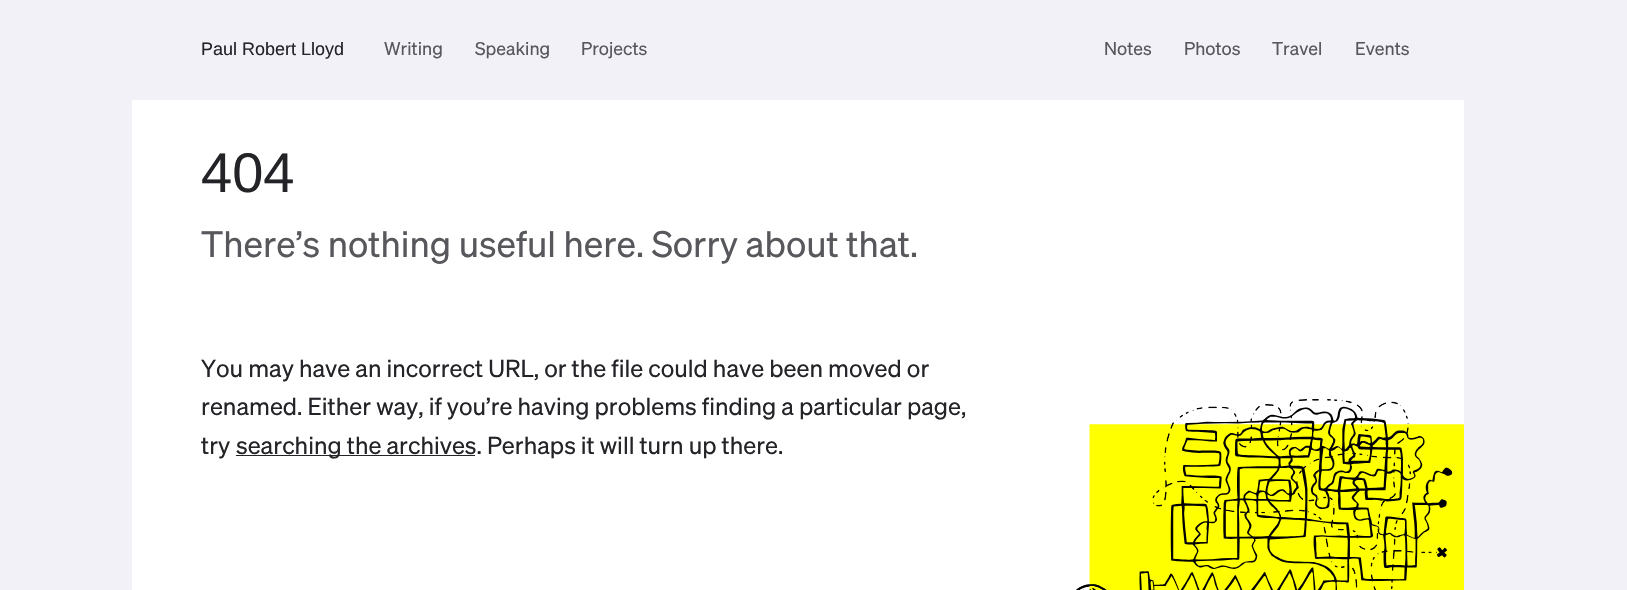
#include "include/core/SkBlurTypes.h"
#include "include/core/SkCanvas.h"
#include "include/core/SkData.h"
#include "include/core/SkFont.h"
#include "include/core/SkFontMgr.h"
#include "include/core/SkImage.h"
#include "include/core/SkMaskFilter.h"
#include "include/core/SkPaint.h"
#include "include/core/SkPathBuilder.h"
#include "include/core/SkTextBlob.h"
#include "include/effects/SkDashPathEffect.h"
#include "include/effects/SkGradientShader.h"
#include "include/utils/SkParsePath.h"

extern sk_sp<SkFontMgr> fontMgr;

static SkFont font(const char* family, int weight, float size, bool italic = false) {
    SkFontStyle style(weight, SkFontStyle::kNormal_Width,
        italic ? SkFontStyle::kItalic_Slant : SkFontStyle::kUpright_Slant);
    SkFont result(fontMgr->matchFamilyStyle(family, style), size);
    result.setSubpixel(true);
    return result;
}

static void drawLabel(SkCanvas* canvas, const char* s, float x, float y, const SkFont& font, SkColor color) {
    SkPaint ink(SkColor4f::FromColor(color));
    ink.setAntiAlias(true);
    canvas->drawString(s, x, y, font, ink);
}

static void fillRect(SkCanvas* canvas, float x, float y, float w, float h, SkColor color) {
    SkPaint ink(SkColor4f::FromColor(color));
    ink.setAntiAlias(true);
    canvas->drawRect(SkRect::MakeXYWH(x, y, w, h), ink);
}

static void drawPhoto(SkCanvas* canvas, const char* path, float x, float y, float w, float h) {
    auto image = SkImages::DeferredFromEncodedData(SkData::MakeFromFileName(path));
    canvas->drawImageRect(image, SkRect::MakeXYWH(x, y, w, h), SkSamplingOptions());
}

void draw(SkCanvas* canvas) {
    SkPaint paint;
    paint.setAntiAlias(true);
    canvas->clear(0xFFF1F1F7);
    SkFont font1 = font("Liberation Sans", 400, 18);
    drawLabel(canvas, "Paul Robert Lloyd", 201, 55, font1, 0xFF242328);
    SkFont font2 = font("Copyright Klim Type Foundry", 400, 18);
    drawLabel(canvas, "Writing", 384, 55, font2, 0xFF58575C);
    drawLabel(canvas, "Speaking", 475, 55, font2, 0xFF58575C);
    drawLabel(canvas, "Projects", 581, 55, font2, 0xFF58575C);
    drawLabel(canvas, "Notes", 1104, 55, font2, 0xFF58575C);
    drawLabel(canvas, "Photos", 1184, 55, font2, 0xFF58575C);
    drawLabel(canvas, "Travel", 1272, 55, font2, 0xFF58575C);
    drawLabel(canvas, "Events", 1355, 55, font2, 0xFF58575C);
    fillRect(canvas, 132, 100, 1332, 490, 0xFFFFFFFF);
    SkFont font3 = font("Liberation Sans", 400, 56);
    drawLabel(canvas, "404", 201, 192, font3, 0xFF242328);
    SkFont font4 = font("Copyright Klim Type Foundry", 400, 36);
    drawLabel(canvas, "There’s nothing useful here. Sorry about that.", 201, 257, font4, 0xFF58575C);
    SkFont font5 = font("Copyright Klim Type Foundry", 400, 24);
    drawLabel(canvas, "You may have an incorrect URL, or the file could have been moved or", 201, 377, font5, 0xFF242328);
    drawLabel(canvas, "renamed. Either way, if you’re having problems finding a particular page,", 201, 415, font5, 0xFF242328);
    drawLabel(canvas, "try", 201, 454, font5, 0xFF242328);
    fillRect(canvas, 236, 455, 239, 1, 0xFF242328);
    drawLabel(canvas, "searching the archives. Perhaps it will turn up there.", 236, 454, font5, 0xFF242328);
    drawPhoto(canvas, "assets/img1.png", 1076, 399, 388, 191);
}
